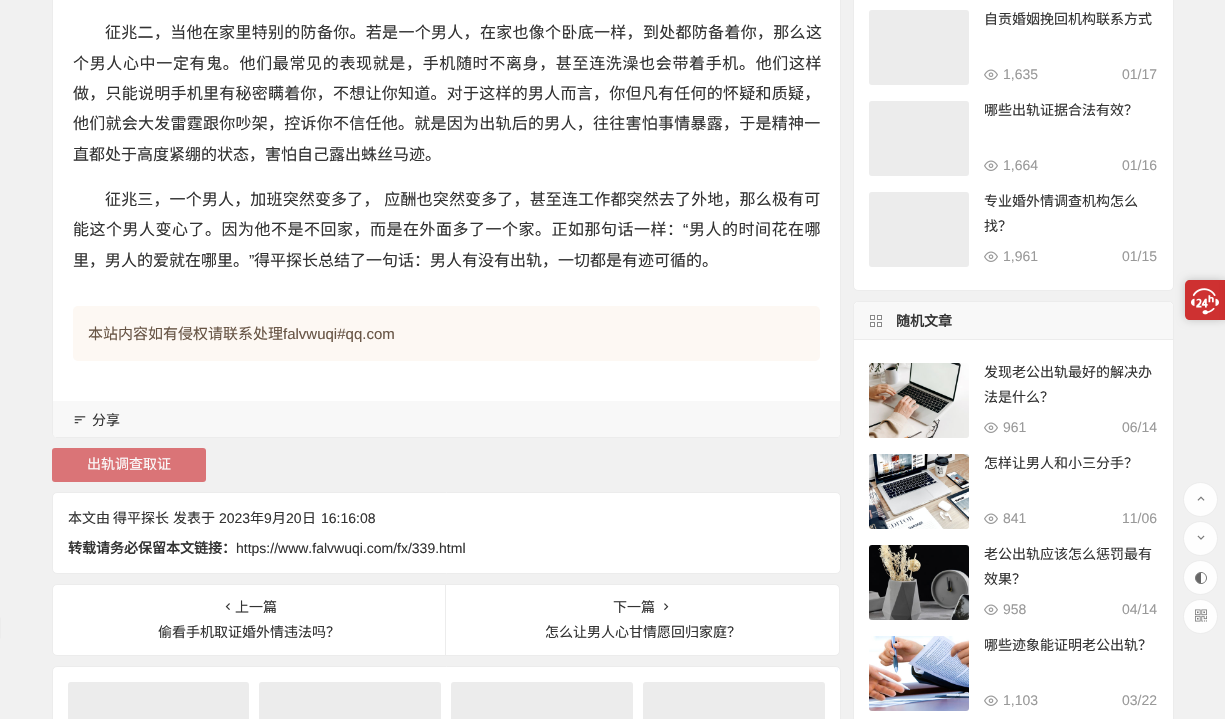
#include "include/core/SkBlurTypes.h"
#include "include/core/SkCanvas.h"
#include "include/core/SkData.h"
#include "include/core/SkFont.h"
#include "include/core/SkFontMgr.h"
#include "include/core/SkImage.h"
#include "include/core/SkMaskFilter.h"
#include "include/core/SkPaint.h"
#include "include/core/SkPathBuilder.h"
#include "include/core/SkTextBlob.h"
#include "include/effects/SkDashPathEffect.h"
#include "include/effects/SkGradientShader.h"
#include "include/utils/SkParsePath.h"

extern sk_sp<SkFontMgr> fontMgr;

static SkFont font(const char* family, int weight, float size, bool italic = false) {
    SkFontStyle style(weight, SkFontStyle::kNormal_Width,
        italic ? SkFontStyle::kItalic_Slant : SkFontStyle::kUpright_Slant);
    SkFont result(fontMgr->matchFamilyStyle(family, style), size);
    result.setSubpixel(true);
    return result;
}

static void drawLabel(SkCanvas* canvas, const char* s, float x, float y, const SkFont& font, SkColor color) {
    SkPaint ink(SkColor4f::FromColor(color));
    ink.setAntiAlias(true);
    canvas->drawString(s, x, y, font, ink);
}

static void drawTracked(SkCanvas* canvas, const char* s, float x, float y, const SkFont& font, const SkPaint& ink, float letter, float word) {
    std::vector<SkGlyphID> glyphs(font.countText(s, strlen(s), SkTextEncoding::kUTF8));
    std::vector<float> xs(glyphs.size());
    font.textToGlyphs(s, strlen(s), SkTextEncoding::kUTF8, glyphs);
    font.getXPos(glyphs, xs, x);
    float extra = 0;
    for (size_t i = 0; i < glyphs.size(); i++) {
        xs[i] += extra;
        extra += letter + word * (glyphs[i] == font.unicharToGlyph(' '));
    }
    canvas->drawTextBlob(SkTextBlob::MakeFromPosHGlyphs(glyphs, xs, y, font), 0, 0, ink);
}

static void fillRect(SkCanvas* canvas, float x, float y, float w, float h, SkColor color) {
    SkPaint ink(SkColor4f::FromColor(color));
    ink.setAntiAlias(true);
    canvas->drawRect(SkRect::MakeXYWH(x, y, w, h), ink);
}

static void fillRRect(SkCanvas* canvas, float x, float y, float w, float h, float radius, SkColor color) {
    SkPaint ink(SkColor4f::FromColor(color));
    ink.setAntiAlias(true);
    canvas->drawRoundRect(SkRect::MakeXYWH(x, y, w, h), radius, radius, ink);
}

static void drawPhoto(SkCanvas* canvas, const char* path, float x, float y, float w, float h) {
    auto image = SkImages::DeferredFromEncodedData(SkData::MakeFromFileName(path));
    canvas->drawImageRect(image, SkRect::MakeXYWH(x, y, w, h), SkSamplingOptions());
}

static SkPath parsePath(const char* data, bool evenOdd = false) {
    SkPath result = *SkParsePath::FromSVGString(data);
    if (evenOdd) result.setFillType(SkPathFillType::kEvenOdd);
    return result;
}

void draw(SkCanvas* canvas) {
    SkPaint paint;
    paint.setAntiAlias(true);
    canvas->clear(0xFFF1F1F1);
    paint.setColor(0xFFECECEC);
    canvas->drawPath(parsePath("M-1 617C0 617 1 618 1 619V637C1 638 0 639-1 639Z"), paint);
    paint.setColor(0xFFFFFFFF);
    canvas->drawRoundRect(SkRect::MakeXYWH(52.5f, -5.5f, 788, 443), 4.5f, 4.5f, paint);
    paint.setStroke(true);
    paint.setStrokeWidth(1);
    paint.setColor(0xFFECECEC);
    canvas->drawRoundRect(SkRect::MakeXYWH(52.5f, -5.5f, 788, 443), 4.5f, 4.5f, paint);
    SkFont font1 = font("Noto Sans CJK SC", 400, 16);
    paint.setStroke(false);
    paint.setColor(0xFF333333);
    drawTracked(canvas, "征兆二，当他在家里特别的防备你。若是一个男人，在家也像个卧底一样，到处都防备着你，那么这", 105, 38, font1, paint, 0.3f, 0);
    drawTracked(canvas, "个男人心中一定有鬼。他们最常见的表现就是，手机随时不离身，甚至连洗澡也会带着手机。他们这样", 73, 69, font1, paint, 0.65f, 0);
    drawTracked(canvas, "做，只能说明手机里有秘密瞒着你，不想让你知道。对于这样的男人而言，你但凡有任何的怀疑和质疑，", 73, 99, font1, paint, 0.25f, 0);
    drawTracked(canvas, "他们就会大发雷霆跟你吵架，控诉你不信任他。就是因为出轨后的男人，往往害怕事情暴露，于是精神一", 73, 129, font1, paint, 0.25f, 0);
    drawLabel(canvas, "直都处于高度紧绷的状态，害怕自己露出蛛丝马迹。", 73, 160, font1, 0xFF333333);
    drawTracked(canvas, "征兆三，一个男人，加班突然变多了， 应酬也突然变多了，甚至连工作都突然去了外地，那么极有可", 105, 205, font1, paint, 0.15f, 1);
    drawTracked(canvas, "能这个男人变心了。因为他不是不回家，而是在外面多了一个家。正如那句话一样：", 73, 235, font1, paint, 0.5f, 0);
    SkFont font2 = font("Liberation Sans", 400, 16);
    drawTracked(canvas, "“", 683, 235, font2, paint, 0.5f, 0);
    drawTracked(canvas, "男人的时间花在哪", 689, 235, font1, paint, 0.5f, 0);
    drawLabel(canvas, "里，男人的爱就在哪里。", 73, 266, font1, 0xFF333333);
    drawLabel(canvas, "”", 249, 266, font2, 0xFF333333);
    drawLabel(canvas, "得平探长总结了一句话：男人有没有出轨，一切都是有迹可循的。", 254, 266, font1, 0xFF333333);
    fillRRect(canvas, 73, 306, 747, 55, 5, 0xFFFDF8F3);
    SkFont font3 = font("Noto Sans CJK SC", 400, 15);
    drawLabel(canvas, "本站内容如有侵权请联系处理", 88, 339, font3, 0xFF685545);
    SkFont font4 = font("Liberation Sans", 400, 15);
    drawLabel(canvas, "falvwuqi#qq.com", 283, 339, font4, 0xFF685545);
    paint.setColor(0xFFF8F8F8);
    canvas->drawPath(parsePath("M53 401H840V433C840 436 838 438 835 438H58C55 438 53 436 53 433Z"), paint);
    fillRect(canvas, 56, 437, 782, 1, 0xFFECECEC);
    drawPhoto(canvas, "assets/img1.png", 74, 416, 12, 8);
    SkFont font5 = font("Noto Sans CJK SC", 400, 14);
    drawLabel(canvas, "分享", 92, 425, font5, 0xFF333333);
    fillRRect(canvas, 52, 448, 154, 34, 3, 0xFFDA7477);
    drawLabel(canvas, "出轨调查取证", 87, 469, font5, 0xFFFBFBFB);
    paint.setColor(0xFFFFFFFF);
    canvas->drawRoundRect(SkRect::MakeXYWH(52.5f, 492.5f, 788, 81), 4.5f, 4.5f, paint);
    paint.setStroke(true);
    paint.setColor(0xFFECECEC);
    canvas->drawRoundRect(SkRect::MakeXYWH(52.5f, 492.5f, 788, 81), 4.5f, 4.5f, paint);
    drawLabel(canvas, "本文由", 68, 523, font5, 0xFF333333);
    drawLabel(canvas, "得平探长", 113, 523, font5, 0xFF333333);
    drawLabel(canvas, "发表于", 173, 523, font5, 0xFF333333);
    SkFont font6 = font("Liberation Sans", 400, 14);
    drawLabel(canvas, "2023", 219, 523, font6, 0xFF333333);
    drawLabel(canvas, "年", 250, 523, font5, 0xFF333333);
    drawLabel(canvas, "9", 264, 523, font6, 0xFF333333);
    drawLabel(canvas, "月", 272, 523, font5, 0xFF333333);
    drawLabel(canvas, "20", 286, 523, font6, 0xFF333333);
    drawLabel(canvas, "日", 302, 523, font5, 0xFF333333);
    drawLabel(canvas, "16:16:08", 321, 523, font6, 0xFF333333);
    SkFont font7 = font("Noto Sans CJK SC", 700, 14);
    drawLabel(canvas, "转载请务必保留本文链接：", 68, 553, font7, 0xFF333333);
    drawLabel(canvas, "https://www.falvwuqi.com/fx/339.html", 236, 553, font6, 0xFF333333);
    paint.setStroke(false);
    paint.setColor(0xFFFFFFFF);
    canvas->drawPath(parsePath("M57 584.5H445.5V655.5H57C54.5 655.5 52.5 653.5 52.5 651V589C52.5 586.5 54.5 584.5 57 584.5Z"), paint);
    paint.setStroke(true);
    paint.setColor(0xFFECECEC);
    canvas->drawPath(parsePath("M57 584.5H445.5V655.5H57C54.5 655.5 52.5 653.5 52.5 651V589C52.5 586.5 54.5 584.5 57 584.5Z"), paint);
    drawPhoto(canvas, "assets/img2.png", 225, 603, 5, 7);
    drawLabel(canvas, "上一篇", 235, 612, font5, 0xFF333333);
    drawLabel(canvas, "偷看手机取证婚外情违法吗？", 158, 637, font5, 0xFF333333);
    paint.setStroke(false);
    paint.setColor(0xFFFFFFFF);
    canvas->drawPath(parsePath("M445.5 584.5H835C837.5 584.5 839.5 586.5 839.5 589V651C839.5 653.5 837.5 655.5 835 655.5H445.5Z"), paint);
    paint.setStroke(true);
    paint.setColor(0xFFECECEC);
    canvas->drawPath(parsePath("M445.5 584.5H835C837.5 584.5 839.5 586.5 839.5 589V651C839.5 653.5 837.5 655.5 835 655.5H445.5Z"), paint);
    drawLabel(canvas, "下一篇", 613, 612, font5, 0xFF333333);
    drawPhoto(canvas, "assets/img3.png", 664, 603, 5, 8);
    drawLabel(canvas, "怎么让男人心甘情愿回归家庭？", 545, 637, font5, 0xFF333333);
    paint.setStroke(false);
    paint.setColor(0xFFFFFFFF);
    canvas->drawRoundRect(SkRect::MakeXYWH(52.5f, 666.5f, 788, 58), 4.5f, 4.5f, paint);
    paint.setStroke(true);
    paint.setColor(0xFFECECEC);
    canvas->drawRoundRect(SkRect::MakeXYWH(52.5f, 666.5f, 788, 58), 4.5f, 4.5f, paint);
    fillRRect(canvas, 68, 682, 181, 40, 3, 0xFFECECEC);
    fillRRect(canvas, 259, 682, 182, 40, 3, 0xFFECECEC);
    fillRRect(canvas, 451, 682, 182, 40, 3, 0xFFECECEC);
    fillRRect(canvas, 643, 682, 182, 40, 3, 0xFFECECEC);
    paint.setStroke(false);
    paint.setColor(0xFFFFFFFF);
    canvas->drawRoundRect(SkRect::MakeXYWH(853.5f, -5.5f, 320, 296), 4.5f, 4.5f, paint);
    paint.setStroke(true);
    paint.setColor(0xFFECECEC);
    canvas->drawRoundRect(SkRect::MakeXYWH(853.5f, -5.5f, 320, 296), 4.5f, 4.5f, paint);
    fillRRect(canvas, 869, 10, 100, 75, 3, 0xFFECECEC);
    drawLabel(canvas, "自贡婚姻挽回机构联系方式", 984, 24, font5, 0xFF333333);
    drawPhoto(canvas, "assets/img4.png", 984, 69, 14, 11);
    drawLabel(canvas, "1,635", 1003, 79, font6, 0xFF999999);
    drawLabel(canvas, "01/17", 1122, 79, font6, 0xFF999999);
    fillRRect(canvas, 869, 101, 100, 75, 3, 0xFFECECEC);
    drawLabel(canvas, "哪些出轨证据合法有效？", 984, 115, font5, 0xFF333333);
    drawPhoto(canvas, "assets/img4.png", 984, 160, 14, 11);
    drawLabel(canvas, "1,664", 1003, 170, font6, 0xFF999999);
    drawLabel(canvas, "01/16", 1122, 170, font6, 0xFF999999);
    fillRRect(canvas, 869, 192, 100, 75, 3, 0xFFECECEC);
    drawLabel(canvas, "专业婚外情调查机构怎么", 984, 206, font5, 0xFF333333);
    drawLabel(canvas, "找？", 984, 231, font5, 0xFF333333);
    drawPhoto(canvas, "assets/img4.png", 984, 251, 14, 11);
    drawLabel(canvas, "1,961", 1003, 261, font6, 0xFF999999);
    drawLabel(canvas, "01/15", 1122, 261, font6, 0xFF999999);
    paint.setStroke(false);
    paint.setColor(0xFFFFFFFF);
    canvas->drawRoundRect(SkRect::MakeXYWH(853.5f, 301.5f, 320, 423), 4.5f, 4.5f, paint);
    paint.setStroke(true);
    paint.setColor(0xFFECECEC);
    canvas->drawRoundRect(SkRect::MakeXYWH(853.5f, 301.5f, 320, 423), 4.5f, 4.5f, paint);
    canvas->save();
    canvas->clipPath(parsePath("M858 302H1169C1171 302 1173 304 1173 306V821C1173 823 1171 825 1169 825H858C856 825 854 823 854 821V306C854 304 856 302 858 302Z"), true);
    paint.setStroke(false);
    paint.setColor(0xFFF8F8F8);
    canvas->drawPath(parsePath("M859 302H1168C1171 302 1173 304 1173 307V340H854V307C854 304 856 302 859 302Z"), paint);
    canvas->restore();
    fillRect(canvas, 854, 339, 319, 1, 0xFFECECEC);
    paint.setColor(0xFFFFFFFF);
    canvas->drawRect(SkRect::MakeXYWH(870.5f, 315.5f, 4, 4), paint);
    paint.setStroke(true);
    paint.setColor(0xFF888888);
    canvas->drawRect(SkRect::MakeXYWH(870.5f, 315.5f, 4, 4), paint);
    paint.setStroke(false);
    paint.setColor(0xFFFFFFFF);
    canvas->drawRect(SkRect::MakeXYWH(877.5f, 315.5f, 4, 4), paint);
    paint.setStroke(true);
    paint.setColor(0xFF888888);
    canvas->drawRect(SkRect::MakeXYWH(877.5f, 315.5f, 4, 4), paint);
    paint.setStroke(false);
    paint.setColor(0xFFFFFFFF);
    canvas->drawRect(SkRect::MakeXYWH(870.5f, 322.5f, 4, 4), paint);
    paint.setStroke(true);
    paint.setColor(0xFF888888);
    canvas->drawRect(SkRect::MakeXYWH(870.5f, 322.5f, 4, 4), paint);
    paint.setStroke(false);
    paint.setColor(0xFFFFFFFF);
    canvas->drawRect(SkRect::MakeXYWH(877.5f, 322.5f, 4, 4), paint);
    paint.setStroke(true);
    paint.setColor(0xFF888888);
    canvas->drawRect(SkRect::MakeXYWH(877.5f, 322.5f, 4, 4), paint);
    drawLabel(canvas, "随机文章", 896, 326, font7, 0xFF333333);
    drawPhoto(canvas, "assets/img5.png", 869, 363, 100, 75);
    drawLabel(canvas, "发现老公出轨最好的解决办", 984, 377, font5, 0xFF333333);
    drawLabel(canvas, "法是什么？", 984, 402, font5, 0xFF333333);
    drawPhoto(canvas, "assets/img4.png", 984, 422, 14, 11);
    drawLabel(canvas, "961", 1003, 432, font6, 0xFF999999);
    drawLabel(canvas, "06/14", 1122, 432, font6, 0xFF999999);
    drawPhoto(canvas, "assets/img6.png", 869, 454, 100, 75);
    drawLabel(canvas, "怎样让男人和小三分手？", 984, 468, font5, 0xFF333333);
    drawPhoto(canvas, "assets/img4.png", 984, 513, 14, 11);
    drawLabel(canvas, "841", 1003, 523, font6, 0xFF999999);
    drawLabel(canvas, "11/06", 1122, 523, font6, 0xFF999999);
    drawPhoto(canvas, "assets/img7.png", 869, 545, 100, 75);
    drawLabel(canvas, "老公出轨应该怎么惩罚最有", 984, 559, font5, 0xFF333333);
    drawLabel(canvas, "效果？", 984, 584, font5, 0xFF333333);
    drawPhoto(canvas, "assets/img4.png", 984, 604, 14, 11);
    drawLabel(canvas, "958", 1003, 614, font6, 0xFF999999);
    drawLabel(canvas, "04/14", 1122, 614, font6, 0xFF999999);
    drawPhoto(canvas, "assets/img8.png", 869, 636, 100, 75);
    drawLabel(canvas, "哪些迹象能证明老公出轨？", 984, 650, font5, 0xFF333333);
    drawPhoto(canvas, "assets/img4.png", 984, 695, 14, 11);
    drawLabel(canvas, "1,103", 1003, 705, font6, 0xFF999999);
    drawLabel(canvas, "03/22", 1122, 705, font6, 0xFF999999);
    canvas->save();
    canvas->clipPath(parsePath("M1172 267H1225V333H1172ZM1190 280H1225V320H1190C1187 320 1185 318 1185 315V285C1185 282 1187 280 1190 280Z", true), true);
    paint.setStroke(false);
    paint.setColor(0x33000000);
    paint.setMaskFilter(SkMaskFilter::MakeBlur(kNormal_SkBlurStyle, 4));
    canvas->drawRoundRect(SkRect::MakeXYWH(1185, 280, 40, 40), 5, 5, paint);
    paint.setMaskFilter(nullptr);
    canvas->restore();
    paint.setColor(0x26000000);
    paint.setMaskFilter(SkMaskFilter::MakeBlur(kNormal_SkBlurStyle, 2.5f));
    canvas->drawRoundRect(SkRect::MakeXYWH(1225, 280, 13, 41), 5, 5, paint);
    paint.setMaskFilter(nullptr);
    paint.setColor(0xCCC40000);
    canvas->drawPath(parsePath("M1190 280H1225V320H1190C1187 320 1185 318 1185 315V285C1185 282 1187 280 1190 280Z"), paint);
    drawPhoto(canvas, "assets/img9.png", 1191, 288, 28, 27);
    paint.setColor(0xFFFEFEFE);
    canvas->drawCircle(1200.5f, 499.5f, 17, paint);
    paint.setStroke(true);
    paint.setColor(0xFFECECEC);
    canvas->drawCircle(1200.5f, 499.5f, 17, paint);
    drawPhoto(canvas, "assets/img10.png", 1197, 496, 8, 5);
    paint.setStroke(false);
    paint.setColor(0xFFFEFEFE);
    canvas->drawCircle(1200.5f, 538.5f, 17, paint);
    paint.setStroke(true);
    paint.setColor(0xFFECECEC);
    canvas->drawCircle(1200.5f, 538.5f, 17, paint);
    drawPhoto(canvas, "assets/img11.png", 1197, 535, 8, 5);
    paint.setStroke(false);
    paint.setColor(0xFFFEFEFE);
    canvas->drawCircle(1200.5f, 577.5f, 17, paint);
    paint.setStroke(true);
    paint.setColor(0xFFECECEC);
    canvas->drawCircle(1200.5f, 577.5f, 17, paint);
    paint.setStroke(false);
    paint.setColor(0xFF666666);
    canvas->drawCircle(1201, 578, 5.5f, paint);
    paint.setStroke(true);
    paint.setColor(0xFF777777);
    canvas->drawCircle(1201, 578, 5.5f, paint);
    paint.setStroke(false);
    paint.setColor(0xFFFFFFFF);
    canvas->drawPath(parsePath("M1201 573C1204 573 1206 575 1206 578C1206 581 1204 583 1201 583Z"), paint);
    paint.setColor(0xFFFEFEFE);
    canvas->drawCircle(1200.5f, 616.5f, 17, paint);
    paint.setStroke(true);
    paint.setColor(0xFFECECEC);
    canvas->drawCircle(1200.5f, 616.5f, 17, paint);
    drawPhoto(canvas, "assets/img12.png", 1195, 609, 12, 13);
}
